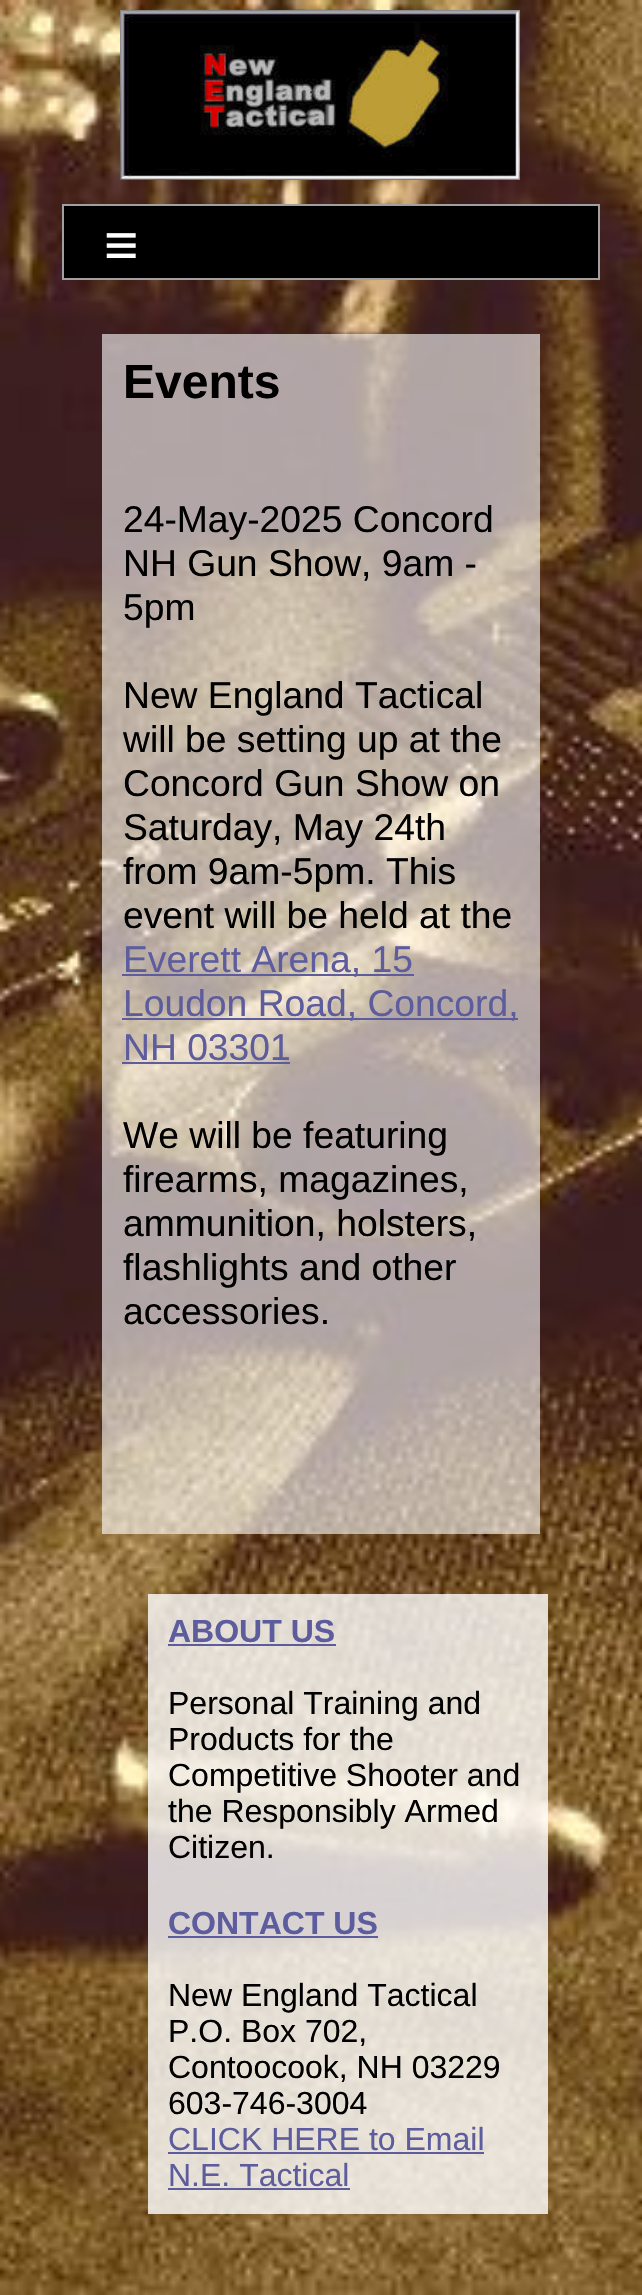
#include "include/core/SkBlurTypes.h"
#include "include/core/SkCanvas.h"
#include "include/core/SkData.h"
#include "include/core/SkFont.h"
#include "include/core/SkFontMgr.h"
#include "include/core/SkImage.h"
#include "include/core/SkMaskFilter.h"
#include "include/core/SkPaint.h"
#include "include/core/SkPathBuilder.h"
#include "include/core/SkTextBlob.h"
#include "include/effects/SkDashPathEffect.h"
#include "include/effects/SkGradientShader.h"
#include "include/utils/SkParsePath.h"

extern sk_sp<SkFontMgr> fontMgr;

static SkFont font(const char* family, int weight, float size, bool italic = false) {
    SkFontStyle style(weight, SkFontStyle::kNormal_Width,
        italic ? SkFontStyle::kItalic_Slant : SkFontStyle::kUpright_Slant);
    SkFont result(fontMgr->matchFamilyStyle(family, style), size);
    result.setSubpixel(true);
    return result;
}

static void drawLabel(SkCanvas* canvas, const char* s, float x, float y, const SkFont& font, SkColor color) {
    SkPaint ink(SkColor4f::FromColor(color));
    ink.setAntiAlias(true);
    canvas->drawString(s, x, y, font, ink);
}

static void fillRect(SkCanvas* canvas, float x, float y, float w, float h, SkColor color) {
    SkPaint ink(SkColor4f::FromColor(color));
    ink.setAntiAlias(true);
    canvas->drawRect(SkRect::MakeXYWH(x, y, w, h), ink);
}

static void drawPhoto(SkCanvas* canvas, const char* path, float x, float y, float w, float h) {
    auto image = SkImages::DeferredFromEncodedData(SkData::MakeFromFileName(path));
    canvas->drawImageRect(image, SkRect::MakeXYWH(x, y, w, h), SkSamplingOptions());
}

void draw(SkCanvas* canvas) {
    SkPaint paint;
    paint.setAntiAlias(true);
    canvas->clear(0xFFFFFFFF);
    drawPhoto(canvas, "assets/img1.png", 0, 0, 642, 2295);
    drawPhoto(canvas, "assets/img2.png", 120, 10, 400, 170);
    paint.setColor(0xFF000000);
    canvas->drawRect(SkRect::MakeXYWH(63, 205, 536, 74), paint);
    paint.setStroke(true);
    paint.setStrokeWidth(2);
    paint.setColor(0xFFA0A0A0);
    canvas->drawRect(SkRect::MakeXYWH(63, 205, 536, 74), paint);
    SkFont font1 = font("Liberation Sans", 400, 59);
    drawLabel(canvas, "≡", 104, 265, font1, 0xFFFFFFFF);
    fillRect(canvas, 102, 334, 438, 1200, 0x99FFFFFF);
    SkFont font2 = font("Liberation Sans", 700, 48);
    drawLabel(canvas, "Events", 123, 398, font2, 0xFF000000);
    SkFont font3 = font("Liberation Sans", 400, 37.25f);
    drawLabel(canvas, "24-May-2025 Concord", 123, 532, font3, 0xFF000000);
    drawLabel(canvas, "NH Gun Show, 9am -", 123, 576, font3, 0xFF000000);
    drawLabel(canvas, "5pm", 123, 620, font3, 0xFF000000);
    drawLabel(canvas, "New England Tactical", 123, 708, font3, 0xFF000000);
    drawLabel(canvas, "will be setting up at the", 123, 752, font3, 0xFF000000);
    drawLabel(canvas, "Concord Gun Show on", 123, 796, font3, 0xFF000000);
    drawLabel(canvas, "Saturday, May 24th", 123, 840, font3, 0xFF000000);
    drawLabel(canvas, "from 9am-5pm. This", 123, 884, font3, 0xFF000000);
    drawLabel(canvas, "event will be held at the", 123, 928, font3, 0xFF000000);
    fillRect(canvas, 122, 974, 292, 2, 0xFF5D5D9E);
    drawLabel(canvas, "Everett Arena, 15", 123, 972, font3, 0xFF5D5D9E);
    fillRect(canvas, 122, 1018, 396, 2, 0xFF5D5D9E);
    drawLabel(canvas, "Loudon Road, Concord,", 123, 1016, font3, 0xFF5D5D9E);
    drawLabel(canvas, "NH 03301", 123, 1060, font3, 0xFF5D5D9E);
    fillRect(canvas, 122, 1062, 168, 2, 0xFF5D5D9E);
    drawLabel(canvas, "We will be featuring", 123, 1148, font3, 0xFF000000);
    drawLabel(canvas, "firearms, magazines,", 123, 1192, font3, 0xFF000000);
    drawLabel(canvas, "ammunition, holsters,", 123, 1236, font3, 0xFF000000);
    drawLabel(canvas, "flashlights and other", 123, 1280, font3, 0xFF000000);
    drawLabel(canvas, "accessories.", 123, 1324, font3, 0xFF000000);
    fillRect(canvas, 148, 1594, 400, 292, 0xCCFFFFFF);
    SkFont font4 = font("Liberation Sans", 700, 32);
    drawLabel(canvas, "ABOUT US", 168, 1642, font4, 0xFF5D5D9E);
    fillRect(canvas, 168, 1644, 168, 2, 0xFF5D5D9E);
    SkFont font5 = font("Liberation Sans", 400, 32);
    drawLabel(canvas, "Personal Training and", 168, 1714, font5, 0xFF000000);
    drawLabel(canvas, "Products for the", 168, 1750, font5, 0xFF000000);
    drawLabel(canvas, "Competitive Shooter and", 168, 1786, font5, 0xFF000000);
    drawLabel(canvas, "the Responsibly Armed", 168, 1822, font5, 0xFF000000);
    drawLabel(canvas, "Citizen.", 168, 1858, font5, 0xFF000000);
    fillRect(canvas, 148, 1886, 400, 328, 0xCCFFFFFF);
    drawLabel(canvas, "CONTACT US", 168, 1934, font4, 0xFF5D5D9E);
    fillRect(canvas, 168, 1936, 210, 2, 0xFF5D5D9E);
    drawLabel(canvas, "New England Tactical", 168, 2006, font5, 0xFF000000);
    drawLabel(canvas, "P.O. Box 702,", 168, 2042, font5, 0xFF000000);
    drawLabel(canvas, "Contoocook, NH 03229", 168, 2078, font5, 0xFF000000);
    drawLabel(canvas, "603-746-3004", 168, 2114, font5, 0xFF000000);
    drawLabel(canvas, "CLICK HERE to Email", 168, 2150, font5, 0xFF5D5D9E);
    fillRect(canvas, 168, 2152, 316, 2, 0xFF5D5D9E);
    drawLabel(canvas, "N.E. Tactical", 168, 2186, font5, 0xFF5D5D9E);
    fillRect(canvas, 168, 2188, 182, 2, 0xFF5D5D9E);
}
